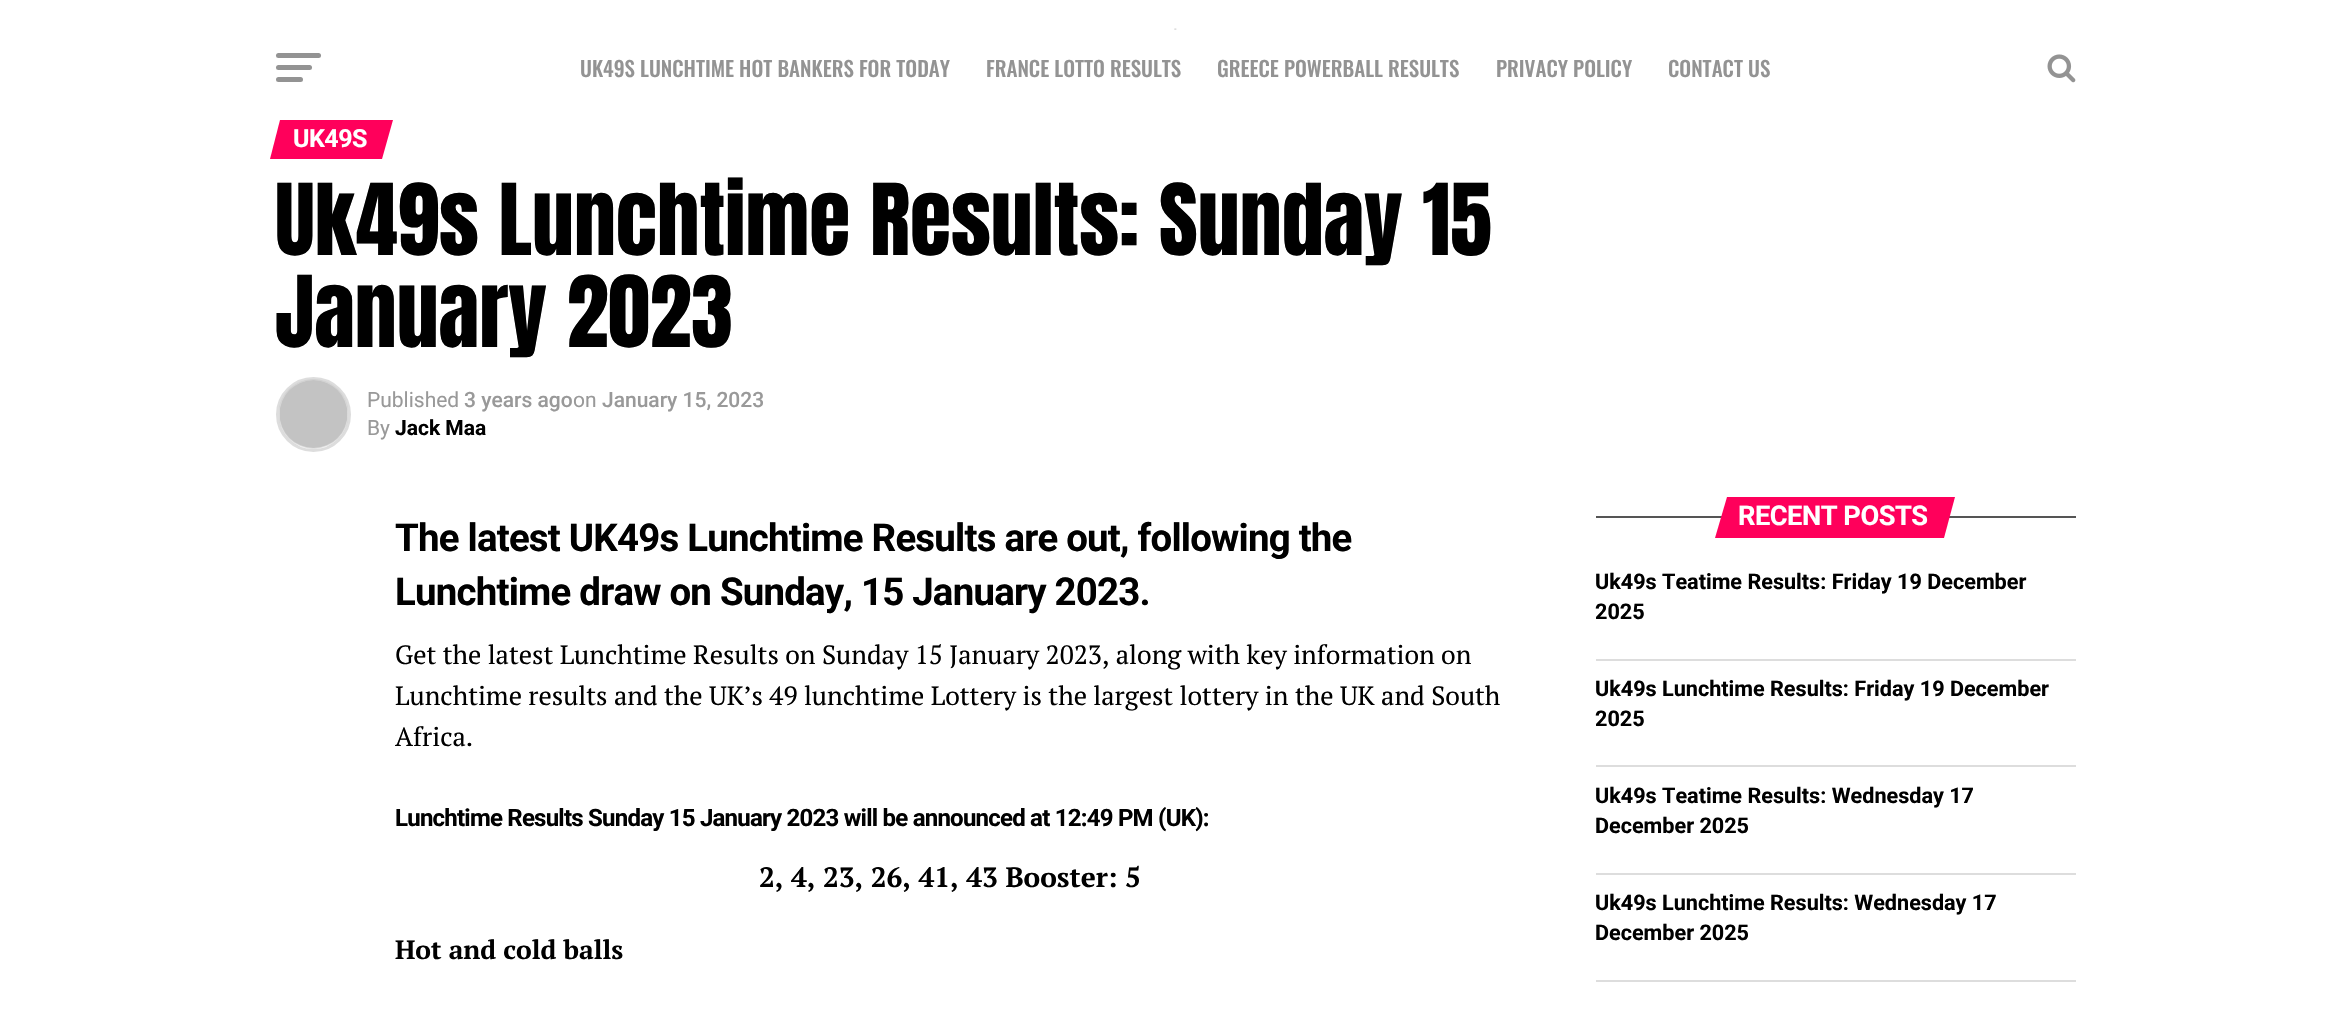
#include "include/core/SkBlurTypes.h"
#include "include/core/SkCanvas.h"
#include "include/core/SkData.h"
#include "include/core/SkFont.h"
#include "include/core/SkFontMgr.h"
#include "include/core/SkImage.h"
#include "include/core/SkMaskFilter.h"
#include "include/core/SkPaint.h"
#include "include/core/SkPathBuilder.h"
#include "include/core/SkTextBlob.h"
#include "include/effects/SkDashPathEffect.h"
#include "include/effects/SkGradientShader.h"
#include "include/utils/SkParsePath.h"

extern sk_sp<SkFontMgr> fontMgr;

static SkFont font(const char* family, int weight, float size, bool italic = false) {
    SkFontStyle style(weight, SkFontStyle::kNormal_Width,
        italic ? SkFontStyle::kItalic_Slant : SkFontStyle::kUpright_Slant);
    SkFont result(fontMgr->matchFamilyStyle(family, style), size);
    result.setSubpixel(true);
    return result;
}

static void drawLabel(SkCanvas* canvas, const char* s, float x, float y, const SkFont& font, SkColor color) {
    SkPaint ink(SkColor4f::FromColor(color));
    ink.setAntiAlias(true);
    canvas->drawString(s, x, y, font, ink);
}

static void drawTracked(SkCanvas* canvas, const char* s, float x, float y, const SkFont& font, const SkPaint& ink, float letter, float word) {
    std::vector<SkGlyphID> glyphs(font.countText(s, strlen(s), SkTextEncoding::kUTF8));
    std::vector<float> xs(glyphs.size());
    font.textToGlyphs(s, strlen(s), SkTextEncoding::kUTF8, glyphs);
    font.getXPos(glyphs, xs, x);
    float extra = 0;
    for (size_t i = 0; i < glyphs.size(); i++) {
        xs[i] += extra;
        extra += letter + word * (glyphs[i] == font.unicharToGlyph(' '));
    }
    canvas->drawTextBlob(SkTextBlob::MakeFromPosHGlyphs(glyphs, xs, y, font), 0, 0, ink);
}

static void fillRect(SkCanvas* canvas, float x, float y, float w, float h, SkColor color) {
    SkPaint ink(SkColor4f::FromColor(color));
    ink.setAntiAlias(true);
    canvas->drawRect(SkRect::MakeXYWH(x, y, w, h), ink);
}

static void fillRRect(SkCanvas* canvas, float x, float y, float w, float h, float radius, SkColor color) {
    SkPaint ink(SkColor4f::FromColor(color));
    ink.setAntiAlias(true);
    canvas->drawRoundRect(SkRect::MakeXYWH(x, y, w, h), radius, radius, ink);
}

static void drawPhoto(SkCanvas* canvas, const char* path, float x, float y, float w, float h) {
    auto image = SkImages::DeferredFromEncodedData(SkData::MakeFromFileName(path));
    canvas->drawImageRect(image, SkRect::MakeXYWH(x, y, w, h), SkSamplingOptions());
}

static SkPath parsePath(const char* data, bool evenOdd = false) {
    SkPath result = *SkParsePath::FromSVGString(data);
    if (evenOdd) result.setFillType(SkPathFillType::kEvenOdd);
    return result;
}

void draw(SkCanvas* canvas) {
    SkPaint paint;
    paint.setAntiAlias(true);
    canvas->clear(0xFFFFFFFF);
    drawPhoto(canvas, "assets/img1.png", 1174, 28, 3, 2);
    fillRRect(canvas, 276, 53, 45, 5, 2.5f, 0xFF939393);
    fillRRect(canvas, 276, 65, 36, 5, 2.5f, 0xFF939393);
    fillRRect(canvas, 276, 77, 27, 5, 2.5f, 0xFF939393);
    SkFont font1 = font("Oswald", 500, 21);
    drawLabel(canvas, "UK49S LUNCHTIME HOT BANKERS FOR TODAY", 580, 77, font1, 0xFF939393);
    drawLabel(canvas, "FRANCE LOTTO RESULTS", 986, 77, font1, 0xFF939393);
    drawLabel(canvas, "GREECE POWERBALL RESULTS", 1217, 77, font1, 0xFF939393);
    drawLabel(canvas, "PRIVACY POLICY", 1496, 77, font1, 0xFF939393);
    drawLabel(canvas, "CONTACT US", 1668, 77, font1, 0xFF939393);
    drawPhoto(canvas, "assets/img2.png", 2047, 54, 29, 29);
    paint.setColor(0xFFFF005B);
    canvas->drawPath(parsePath("M280 120H393L382 159H270Z"), paint);
    SkFont font2 = font("Roboto", 700, 25);
    paint.setColor(0xFFFFFFFF);
    drawTracked(canvas, "UK49S", 293, 147, font2, paint, -0.5f, 0);
    SkFont font3 = font("Anton", 400, 84);
    drawLabel(canvas, "Uk49s Lunchtime Results: Sunday 15", 275, 255, font3, 0xFF000000);
    drawLabel(canvas, "January 2023", 275, 347, font3, 0xFF000000);
    paint.setStroke(true);
    paint.setStrokeWidth(3);
    paint.setColor(0xFFDDDDDD);
    canvas->drawCircle(313.5f, 414.5f, 36, paint);
    drawPhoto(canvas, "assets/img3.png", 279, 379, 69, 70);
    SkFont font4 = font("Roboto", 400, 21);
    drawLabel(canvas, "Published", 367, 407, font4, 0xFF999999);
    SkFont font5 = font("Roboto", 500, 21);
    drawLabel(canvas, "3 years ago", 464, 407, font5, 0xFF999999);
    drawLabel(canvas, "on", 573, 407, font4, 0xFF999999);
    drawLabel(canvas, "January 15, 2023", 602, 407, font5, 0xFF999999);
    drawLabel(canvas, "By", 367, 435, font4, 0xFF999999);
    SkFont font6 = font("Roboto", 700, 21);
    drawLabel(canvas, "Jack Maa", 395, 435, font6, 0xFF000000);
    SkFont font7 = font("Roboto", 700, 38.4f);
    paint.setStroke(false);
    paint.setColor(0xFF000000);
    drawTracked(canvas, "The latest UK49s Lunchtime Results are out, following the", 395, 551, font7, paint, -0.77f, 0);
    drawTracked(canvas, "Lunchtime draw on Sunday, 15 January 2023.", 395, 605, font7, paint, -0.77f, 0);
    SkFont font8 = font("PT Serif", 400, 26.4f);
    drawLabel(canvas, "Get the latest Lunchtime Results on Sunday 15 January 2023, along with key information on", 395, 664, font8, 0xFF000000);
    drawLabel(canvas, "Lunchtime results and the UK’s 49 lunchtime Lottery is the largest lottery in the UK and South", 395, 705, font8, 0xFF000000);
    drawLabel(canvas, "Africa.", 395, 746, font8, 0xFF000000);
    SkFont font9 = font("Roboto", 700, 24);
    drawTracked(canvas, "Lunchtime Results Sunday 15 January 2023 will be announced at 12:49 PM (UK):", 395, 826, font9, paint, -0.77f, 0);
    SkFont font10 = font("PT Serif", 700, 28);
    drawLabel(canvas, "2, 4, 23, 26, 41, 43 Booster: 5", 759, 887, font10, 0xFF000000);
    SkFont font11 = font("PT Serif", 700, 26.4f);
    drawLabel(canvas, "Hot and cold balls", 395, 959, font11, 0xFF000000);
    fillRect(canvas, 1596, 516, 480, 2, 0xFF555555);
    paint.setColor(0xFFFF005B);
    canvas->drawPath(parsePath("M1727 497H1955L1944 538H1715Z"), paint);
    SkFont font12 = font("Roboto", 700, 27.25f);
    paint.setColor(0xFFFFFFFF);
    drawTracked(canvas, "RECENT POSTS", 1738, 525, font12, paint, -0.5f, 0);
    SkFont font13 = font("Roboto", 700, 21.6f);
    drawLabel(canvas, "Uk49s Teatime Results: Friday 19 December", 1595, 589, font13, 0xFF000000);
    drawLabel(canvas, "2025", 1595, 619, font13, 0xFF000000);
    fillRect(canvas, 1596, 659, 480, 2, 0xFFDDDDDD);
    drawLabel(canvas, "Uk49s Lunchtime Results: Friday 19 December", 1595, 696, font13, 0xFF000000);
    drawLabel(canvas, "2025", 1595, 726, font13, 0xFF000000);
    fillRect(canvas, 1596, 765, 480, 2, 0xFFDDDDDD);
    drawLabel(canvas, "Uk49s Teatime Results: Wednesday 17", 1595, 803, font13, 0xFF000000);
    drawLabel(canvas, "December 2025", 1595, 833, font13, 0xFF000000);
    fillRect(canvas, 1596, 873, 480, 2, 0xFFDDDDDD);
    drawLabel(canvas, "Uk49s Lunchtime Results: Wednesday 17", 1595, 910, font13, 0xFF000000);
    drawLabel(canvas, "December 2025", 1595, 940, font13, 0xFF000000);
    fillRect(canvas, 1596, 980, 480, 2, 0xFFDDDDDD);
}
